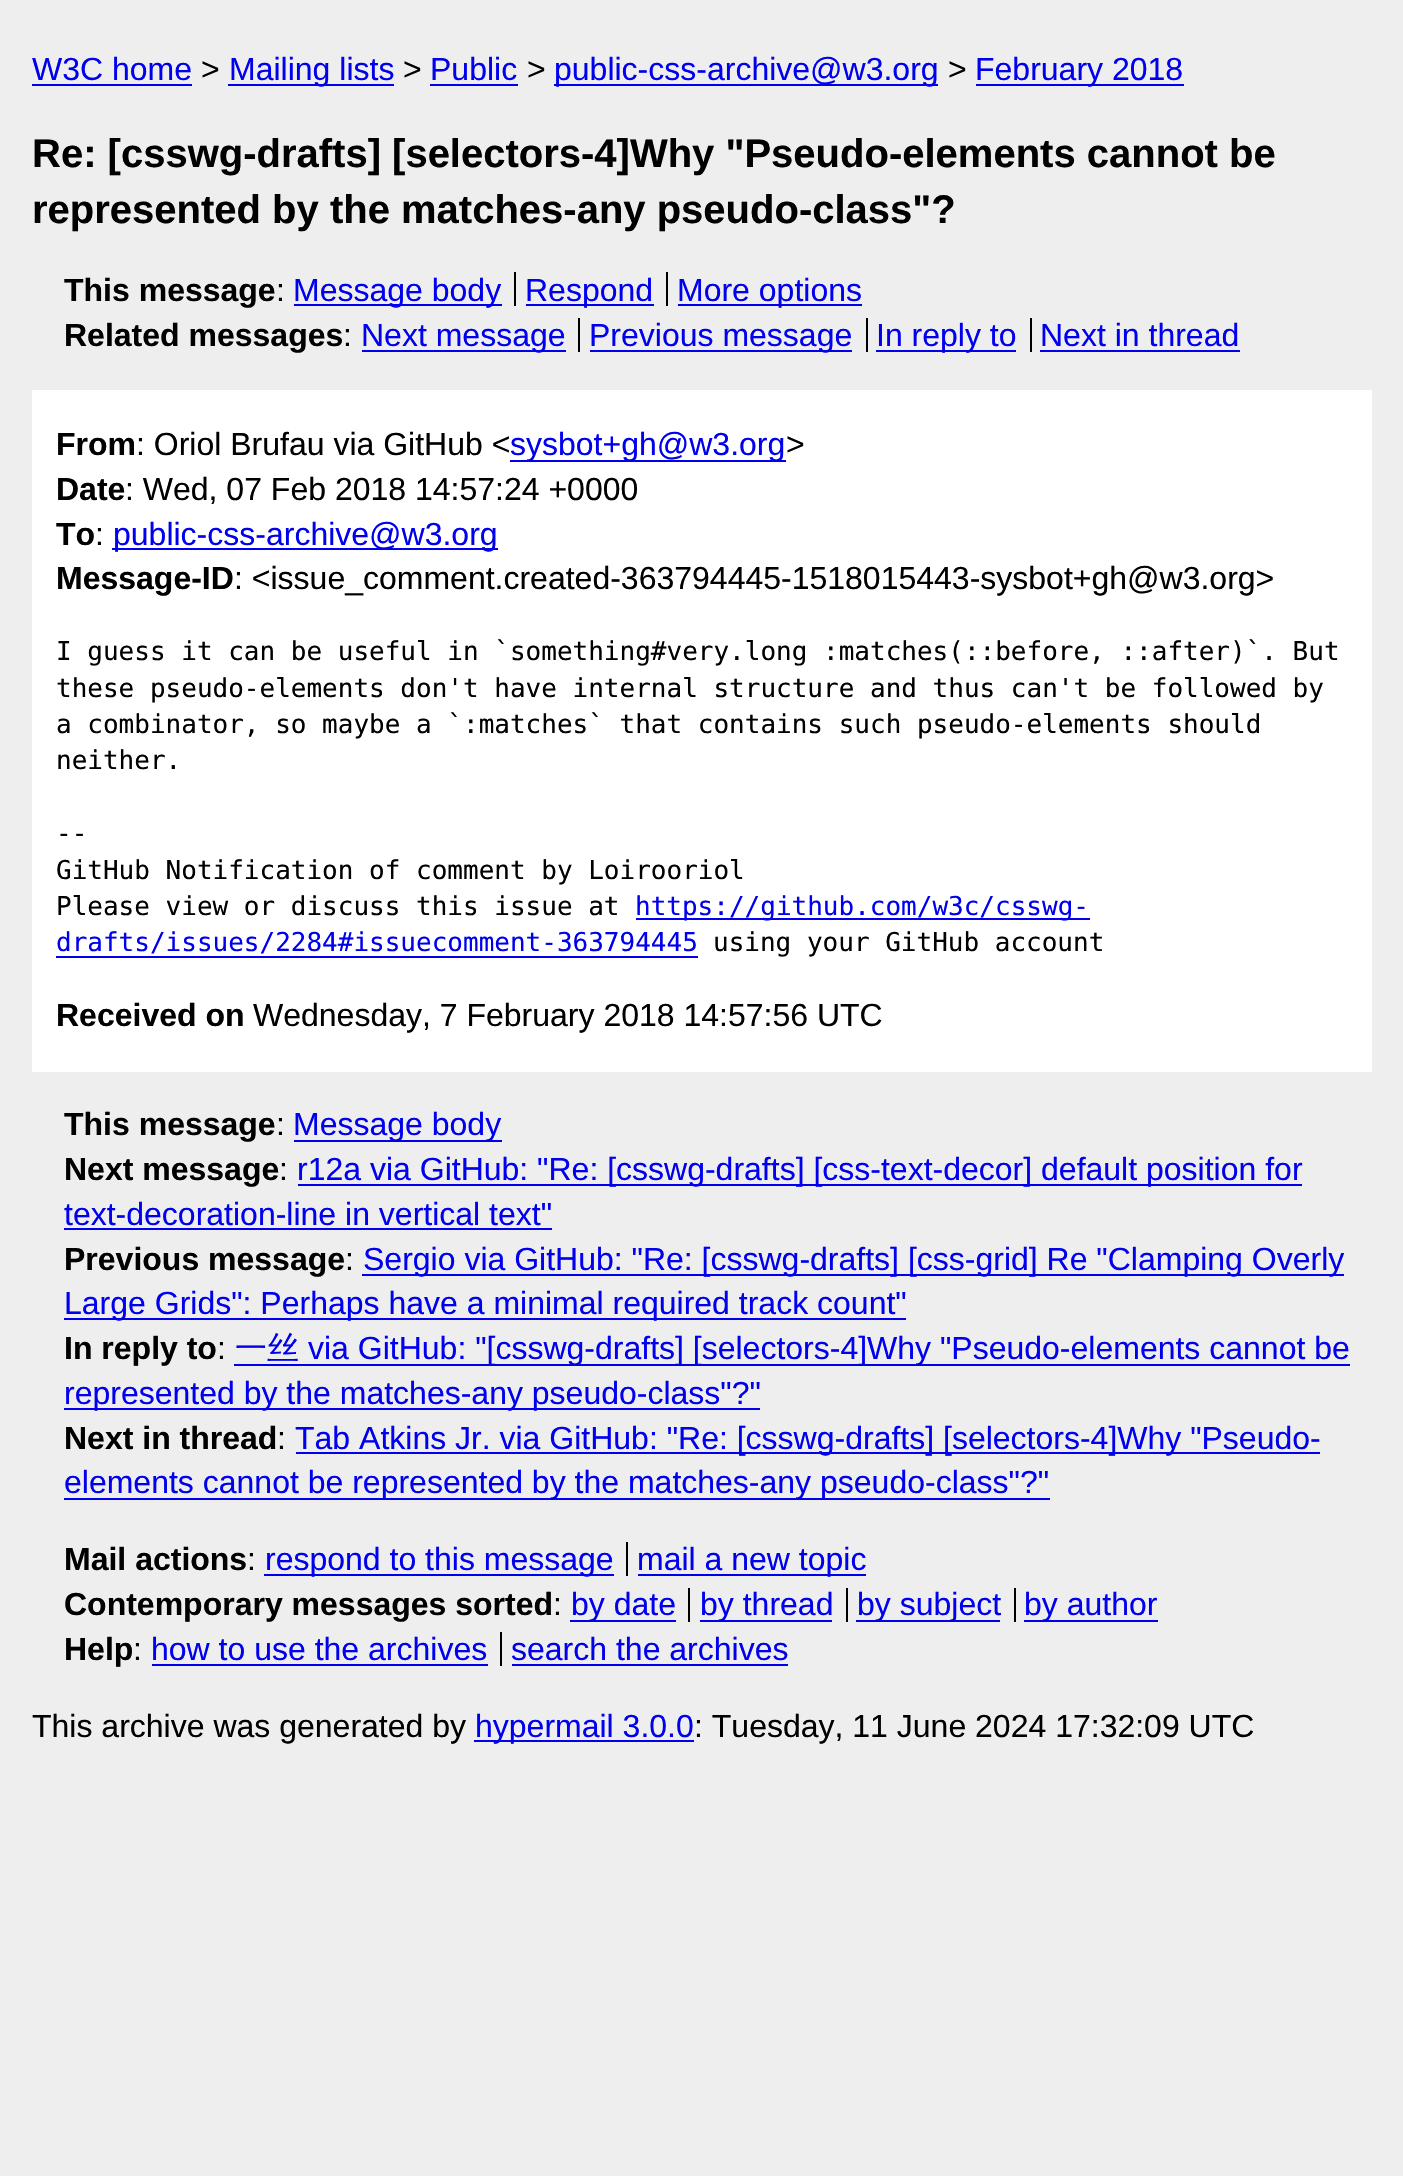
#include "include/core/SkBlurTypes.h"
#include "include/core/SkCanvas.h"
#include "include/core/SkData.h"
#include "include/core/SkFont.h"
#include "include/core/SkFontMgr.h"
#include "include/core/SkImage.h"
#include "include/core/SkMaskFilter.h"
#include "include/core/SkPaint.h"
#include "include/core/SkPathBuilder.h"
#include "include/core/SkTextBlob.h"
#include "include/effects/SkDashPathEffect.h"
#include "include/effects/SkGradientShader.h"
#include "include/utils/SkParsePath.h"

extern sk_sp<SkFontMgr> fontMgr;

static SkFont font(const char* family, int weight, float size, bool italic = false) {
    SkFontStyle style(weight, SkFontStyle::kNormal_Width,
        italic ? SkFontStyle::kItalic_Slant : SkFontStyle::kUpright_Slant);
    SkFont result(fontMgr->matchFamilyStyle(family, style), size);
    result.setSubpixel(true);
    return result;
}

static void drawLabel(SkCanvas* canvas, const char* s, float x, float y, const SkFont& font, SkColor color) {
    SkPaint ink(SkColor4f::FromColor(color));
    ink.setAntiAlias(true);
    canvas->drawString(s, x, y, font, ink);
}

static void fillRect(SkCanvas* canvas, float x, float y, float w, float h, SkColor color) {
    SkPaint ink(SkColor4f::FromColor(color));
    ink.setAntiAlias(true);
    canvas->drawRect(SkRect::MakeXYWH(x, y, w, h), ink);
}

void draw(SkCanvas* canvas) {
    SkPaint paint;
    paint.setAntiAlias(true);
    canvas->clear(0xFFEEEEEE);
    SkFont font1 = font("Liberation Sans", 400, 32);
    drawLabel(canvas, "W3C home", 32, 80, font1, 0xFF0000EE);
    fillRect(canvas, 32, 84, 160, 2, 0xFF0000EE);
    drawLabel(canvas, ">", 201, 80, font1, 0xFF000000);
    fillRect(canvas, 228, 84, 166, 2, 0xFF0000EE);
    drawLabel(canvas, "Mailing lists", 229, 80, font1, 0xFF0000EE);
    drawLabel(canvas, ">", 403, 80, font1, 0xFF000000);
    drawLabel(canvas, "Public", 430, 80, font1, 0xFF0000EE);
    fillRect(canvas, 430, 84, 88, 2, 0xFF0000EE);
    drawLabel(canvas, ">", 527, 80, font1, 0xFF000000);
    fillRect(canvas, 554, 84, 384, 2, 0xFF0000EE);
    drawLabel(canvas, "public-css-archive@w3.org", 554, 80, font1, 0xFF0000EE);
    drawLabel(canvas, ">", 948, 80, font1, 0xFF000000);
    fillRect(canvas, 976, 84, 208, 2, 0xFF0000EE);
    drawLabel(canvas, "February 2018", 975, 80, font1, 0xFF0000EE);
    SkFont font2 = font("Liberation Sans", 700, 40);
    drawLabel(canvas, "Re: [csswg-drafts] [selectors-4]Why \"Pseudo-elements cannot be", 32, 167, font2, 0xFF000000);
    drawLabel(canvas, "represented by the matches-any pseudo-class\"?", 32, 223, font2, 0xFF000000);
    SkFont font3 = font("Liberation Sans", 700, 32);
    drawLabel(canvas, "This message", 64, 301, font3, 0xFF000000);
    drawLabel(canvas, ":", 276, 301, font1, 0xFF000000);
    fillRect(canvas, 294, 304, 208, 2, 0xFF0000EE);
    drawLabel(canvas, "Message body", 293, 301, font1, 0xFF0000EE);
    fillRect(canvas, 526, 304, 128, 2, 0xFF0000EE);
    drawLabel(canvas, "Respond", 525, 301, font1, 0xFF0000EE);
    fillRect(canvas, 514, 272, 2, 34, 0xFF000000);
    fillRect(canvas, 678, 304, 184, 2, 0xFF0000EE);
    drawLabel(canvas, "More options", 677, 301, font1, 0xFF0000EE);
    fillRect(canvas, 666, 272, 2, 34, 0xFF000000);
    drawLabel(canvas, "Related messages", 64, 346, font3, 0xFF000000);
    drawLabel(canvas, ":", 343, 346, font1, 0xFF000000);
    fillRect(canvas, 362, 350, 204, 2, 0xFF0000EE);
    drawLabel(canvas, "Next message", 361, 346, font1, 0xFF0000EE);
    fillRect(canvas, 590, 350, 262, 2, 0xFF0000EE);
    drawLabel(canvas, "Previous message", 589, 346, font1, 0xFF0000EE);
    fillRect(canvas, 578, 318, 2, 34, 0xFF000000);
    fillRect(canvas, 876, 350, 140, 2, 0xFF0000EE);
    drawLabel(canvas, "In reply to", 876, 346, font1, 0xFF0000EE);
    fillRect(canvas, 866, 318, 2, 34, 0xFF000000);
    drawLabel(canvas, "Next in thread", 1040, 346, font1, 0xFF0000EE);
    fillRect(canvas, 1030, 318, 2, 34, 0xFF000000);
    fillRect(canvas, 1040, 350, 200, 2, 0xFF0000EE);
    fillRect(canvas, 32, 390, 1340, 682, 0xFFFFFFFF);
    drawLabel(canvas, "From", 56, 455, font3, 0xFF000000);
    drawLabel(canvas, ": Oriol Brufau via GitHub <", 136, 455, font1, 0xFF000000);
    fillRect(canvas, 510, 460, 276, 2, 0xFF0000EE);
    drawLabel(canvas, "sysbot+gh@w3.org", 510, 455, font1, 0xFF0000EE);
    drawLabel(canvas, ">", 786, 455, font1, 0xFF000000);
    drawLabel(canvas, "Date", 56, 500, font3, 0xFF000000);
    drawLabel(canvas, ": Wed, 07 Feb 2018 14:57:24 +0000", 125, 500, font1, 0xFF000000);
    drawLabel(canvas, "To", 56, 545, font3, 0xFF000000);
    drawLabel(canvas, ":", 95, 545, font1, 0xFF000000);
    fillRect(canvas, 112, 548, 386, 2, 0xFF0000EE);
    drawLabel(canvas, "public-css-archive@w3.org", 113, 545, font1, 0xFF0000EE);
    drawLabel(canvas, "Message-ID", 56, 589, font3, 0xFF000000);
    drawLabel(canvas, ": <issue_comment.created-363794445-1518015443-sysbot+gh@w3.org>", 234, 589, font1, 0xFF000000);
    SkFont font4 = font("DejaVu Sans Mono", 400, 26);
    drawLabel(canvas, "I guess it can be useful in `something#very.long :matches(::before, ::after)`. But", 56, 660, font4, 0xFF000000);
    drawLabel(canvas, "these pseudo-elements don't have internal structure and thus can't be followed by", 56, 697, font4, 0xFF000000);
    drawLabel(canvas, "a combinator, so maybe a `:matches` that contains such pseudo-elements should", 56, 733, font4, 0xFF000000);
    drawLabel(canvas, "neither.", 56, 769, font4, 0xFF000000);
    drawLabel(canvas, "--", 56, 842, font4, 0xFF000000);
    drawLabel(canvas, "GitHub Notification of comment by Loirooriol", 56, 879, font4, 0xFF000000);
    drawLabel(canvas, "Please view or discuss this issue at", 56, 915, font4, 0xFF000000);
    fillRect(canvas, 636, 918, 454, 2, 0xFF0000EE);
    drawLabel(canvas, "https://github.com/w3c/csswg-", 635, 915, font4, 0xFF0000EE);
    drawLabel(canvas, "drafts/issues/2284#issuecomment-363794445", 56, 951, font4, 0xFF0000EE);
    fillRect(canvas, 56, 956, 642, 2, 0xFF0000EE);
    drawLabel(canvas, "using your GitHub account", 713, 951, font4, 0xFF000000);
    drawLabel(canvas, "Received on", 56, 1026, font3, 0xFF000000);
    drawLabel(canvas, "Wednesday, 7 February 2018 14:57:56 UTC", 253, 1026, font1, 0xFF000000);
    drawLabel(canvas, "This message", 64, 1135, font3, 0xFF000000);
    drawLabel(canvas, ":", 276, 1135, font1, 0xFF000000);
    fillRect(canvas, 294, 1140, 208, 2, 0xFF0000EE);
    drawLabel(canvas, "Message body", 293, 1135, font1, 0xFF0000EE);
    drawLabel(canvas, "Next message", 64, 1180, font3, 0xFF000000);
    drawLabel(canvas, ":", 279, 1180, font1, 0xFF000000);
    fillRect(canvas, 298, 1184, 1004, 2, 0xFF0000EE);
    drawLabel(canvas, "r12a via GitHub: \"Re: [csswg-drafts] [css-text-decor] default position for", 297, 1180, font1, 0xFF0000EE);
    drawLabel(canvas, "text-decoration-line in vertical text\"", 64, 1225, font1, 0xFF0000EE);
    fillRect(canvas, 64, 1228, 488, 2, 0xFF0000EE);
    drawLabel(canvas, "Previous message", 64, 1270, font3, 0xFF000000);
    drawLabel(canvas, ":", 345, 1270, font1, 0xFF000000);
    fillRect(canvas, 362, 1274, 982, 2, 0xFF0000EE);
    drawLabel(canvas, "Sergio via GitHub: \"Re: [csswg-drafts] [css-grid] Re \"Clamping Overly", 363, 1270, font1, 0xFF0000EE);
    fillRect(canvas, 64, 1318, 842, 2, 0xFF0000EE);
    drawLabel(canvas, "Large Grids\": Perhaps have a minimal required track count\"", 64, 1314, font1, 0xFF0000EE);
    drawLabel(canvas, "In reply to", 64, 1359, font3, 0xFF000000);
    drawLabel(canvas, ":", 217, 1359, font1, 0xFF000000);
    SkFont font5 = font("WenQuanYi Zen Hei", 500, 32);
    drawLabel(canvas, "一丝", 235, 1359, font5, 0xFF0000EE);
    fillRect(canvas, 234, 1364, 1116, 2, 0xFF0000EE);
    drawLabel(canvas, "via GitHub: \"[csswg-drafts] [selectors-4]Why \"Pseudo-elements cannot be", 308, 1359, font1, 0xFF0000EE);
    fillRect(canvas, 64, 1408, 696, 2, 0xFF0000EE);
    drawLabel(canvas, "represented by the matches-any pseudo-class\"?\"", 64, 1404, font1, 0xFF0000EE);
    drawLabel(canvas, "Next in thread", 64, 1449, font3, 0xFF000000);
    drawLabel(canvas, ":", 277, 1449, font1, 0xFF000000);
    fillRect(canvas, 296, 1452, 1024, 2, 0xFF0000EE);
    drawLabel(canvas, "Tab Atkins Jr. via GitHub: \"Re: [csswg-drafts] [selectors-4]Why \"Pseudo-", 295, 1449, font1, 0xFF0000EE);
    fillRect(canvas, 64, 1498, 986, 2, 0xFF0000EE);
    drawLabel(canvas, "elements cannot be represented by the matches-any pseudo-class\"?\"", 64, 1493, font1, 0xFF0000EE);
    drawLabel(canvas, "Mail actions", 64, 1570, font3, 0xFF000000);
    drawLabel(canvas, ":", 247, 1570, font1, 0xFF000000);
    fillRect(canvas, 264, 1574, 350, 2, 0xFF0000EE);
    drawLabel(canvas, "respond to this message", 265, 1570, font1, 0xFF0000EE);
    fillRect(canvas, 638, 1574, 228, 2, 0xFF0000EE);
    drawLabel(canvas, "mail a new topic", 637, 1570, font1, 0xFF0000EE);
    fillRect(canvas, 626, 1542, 2, 34, 0xFF000000);
    drawLabel(canvas, "Contemporary messages sorted", 64, 1615, font3, 0xFF000000);
    drawLabel(canvas, ":", 553, 1615, font1, 0xFF000000);
    fillRect(canvas, 570, 1620, 106, 2, 0xFF0000EE);
    drawLabel(canvas, "by date", 571, 1615, font1, 0xFF0000EE);
    fillRect(canvas, 700, 1620, 132, 2, 0xFF0000EE);
    drawLabel(canvas, "by thread", 700, 1615, font1, 0xFF0000EE);
    fillRect(canvas, 688, 1588, 2, 34, 0xFF000000);
    fillRect(canvas, 856, 1620, 144, 2, 0xFF0000EE);
    drawLabel(canvas, "by subject", 857, 1615, font1, 0xFF0000EE);
    fillRect(canvas, 846, 1588, 2, 34, 0xFF000000);
    fillRect(canvas, 1024, 1620, 134, 2, 0xFF0000EE);
    drawLabel(canvas, "by author", 1024, 1615, font1, 0xFF0000EE);
    fillRect(canvas, 1014, 1588, 2, 34, 0xFF000000);
    drawLabel(canvas, "Help", 64, 1660, font3, 0xFF000000);
    drawLabel(canvas, ":", 133, 1660, font1, 0xFF000000);
    drawLabel(canvas, "how to use the archives", 151, 1660, font1, 0xFF0000EE);
    fillRect(canvas, 152, 1664, 336, 2, 0xFF0000EE);
    drawLabel(canvas, "search the archives", 511, 1660, font1, 0xFF0000EE);
    fillRect(canvas, 500, 1632, 2, 34, 0xFF000000);
    fillRect(canvas, 512, 1664, 276, 2, 0xFF0000EE);
    drawLabel(canvas, "This archive was generated by", 32, 1737, font1, 0xFF000000);
    fillRect(canvas, 474, 1740, 220, 2, 0xFF0000EE);
    drawLabel(canvas, "hypermail 3.0.0", 475, 1737, font1, 0xFF0000EE);
    drawLabel(canvas, ": Tuesday, 11 June 2024 17:32:09 UTC", 694, 1737, font1, 0xFF000000);
}
